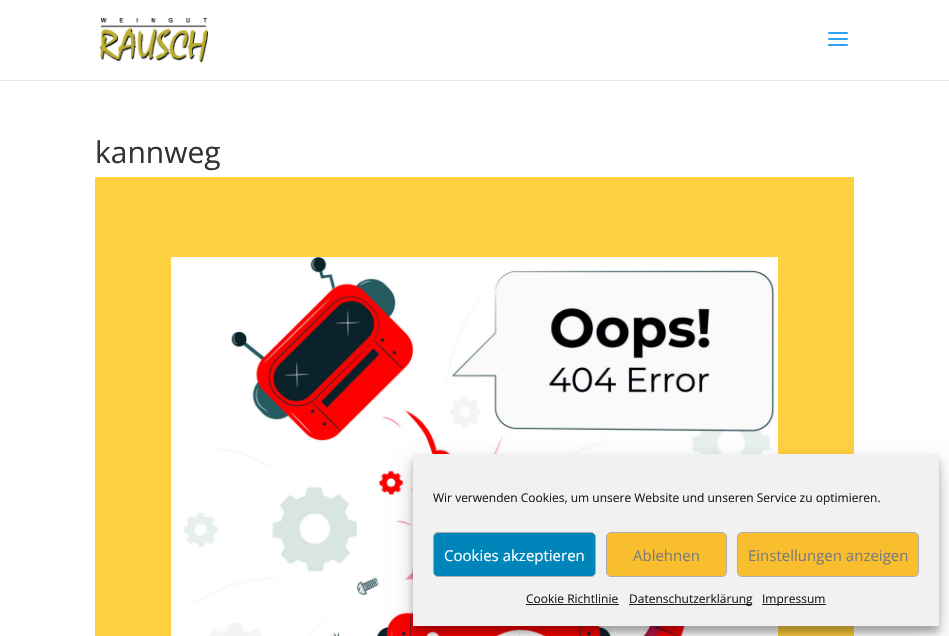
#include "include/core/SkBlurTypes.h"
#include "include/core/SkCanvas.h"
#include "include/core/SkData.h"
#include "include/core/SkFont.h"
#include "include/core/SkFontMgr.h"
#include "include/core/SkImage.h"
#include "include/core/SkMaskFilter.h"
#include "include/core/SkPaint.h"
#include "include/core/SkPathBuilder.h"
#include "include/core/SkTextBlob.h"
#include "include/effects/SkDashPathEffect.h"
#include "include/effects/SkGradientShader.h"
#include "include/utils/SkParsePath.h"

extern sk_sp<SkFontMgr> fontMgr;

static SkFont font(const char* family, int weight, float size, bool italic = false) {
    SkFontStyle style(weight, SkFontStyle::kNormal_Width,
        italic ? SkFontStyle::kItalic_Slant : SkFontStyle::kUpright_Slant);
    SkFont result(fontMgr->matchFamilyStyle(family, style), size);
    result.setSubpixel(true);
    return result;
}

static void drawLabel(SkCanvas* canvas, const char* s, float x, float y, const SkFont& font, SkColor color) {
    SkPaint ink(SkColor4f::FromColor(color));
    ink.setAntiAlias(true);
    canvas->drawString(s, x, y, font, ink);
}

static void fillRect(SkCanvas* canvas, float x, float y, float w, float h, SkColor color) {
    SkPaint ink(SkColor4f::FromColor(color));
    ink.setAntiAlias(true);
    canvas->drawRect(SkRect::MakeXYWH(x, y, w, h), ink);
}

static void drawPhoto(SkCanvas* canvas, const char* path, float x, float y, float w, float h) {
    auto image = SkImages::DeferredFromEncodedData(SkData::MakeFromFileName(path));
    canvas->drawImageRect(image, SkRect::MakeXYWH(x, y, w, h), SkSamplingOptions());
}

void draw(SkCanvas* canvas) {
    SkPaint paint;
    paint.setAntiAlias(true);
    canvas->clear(0xFFFFFFFF);
    fillRect(canvas, 0, 80, 949, 1, 0xFFE6E6E6);
    drawPhoto(canvas, "assets/img1.png", 99, 18, 109, 44);
    drawPhoto(canvas, "assets/img2.png", 828, 32, 20, 14);
    SkFont font1 = font("Open Sans", 400, 30);
    drawLabel(canvas, "kannweg", 95, 163, font1, 0xFF333333);
    fillRect(canvas, 95, 177, 759, 459, 0xFFFFD040);
    drawPhoto(canvas, "assets/img3.png", 171, 257, 607, 379);
    paint.setColor(0x3B000000);
    paint.setMaskFilter(SkMaskFilter::MakeBlur(kNormal_SkBlurStyle, 3));
    canvas->drawRect(SkRect::MakeXYWH(413, 460, 526, 172), paint);
    paint.setMaskFilter(nullptr);
    paint.setColor(0x30000000);
    paint.setMaskFilter(SkMaskFilter::MakeBlur(kNormal_SkBlurStyle, 10));
    canvas->drawRect(SkRect::MakeXYWH(413, 464, 526, 172), paint);
    paint.setMaskFilter(nullptr);
    fillRect(canvas, 413, 454, 526, 172, 0xFFF1F1F1);
    SkFont font2 = font("Open Sans", 400, 12);
    drawLabel(canvas, "Wir verwenden Cookies, um unsere Website und unseren Service zu optimieren.", 433, 502, font2, 0xFF191E23);
    paint.setColor(0xFF0085BA);
    canvas->drawRoundRect(SkRect::MakeXYWH(433.5f, 532.5f, 162, 44), 4.5f, 4.5f, paint);
    paint.setStroke(true);
    paint.setStrokeWidth(1);
    paint.setColor(0xFFADADAD);
    canvas->drawRoundRect(SkRect::MakeXYWH(433.5f, 532.5f, 162, 44), 4.5f, 4.5f, paint);
    SkFont font3 = font("Open Sans", 400, 15);
    drawLabel(canvas, "Cookies akzeptieren", 444, 561, font3, 0xFFFFFFFF);
    paint.setStroke(false);
    paint.setColor(0xFFF8BE2E);
    canvas->drawRoundRect(SkRect::MakeXYWH(606.5f, 532.5f, 120, 44), 4.5f, 4.5f, paint);
    paint.setStroke(true);
    paint.setColor(0xFFADADAD);
    canvas->drawRoundRect(SkRect::MakeXYWH(606.5f, 532.5f, 120, 44), 4.5f, 4.5f, paint);
    drawLabel(canvas, "Ablehnen", 633, 561, font3, 0xFF7C7C7C);
    paint.setStroke(false);
    paint.setColor(0xFFF8BE2E);
    canvas->drawRoundRect(SkRect::MakeXYWH(737.5f, 532.5f, 181, 44), 4.5f, 4.5f, paint);
    paint.setStroke(true);
    paint.setColor(0xFFADADAD);
    canvas->drawRoundRect(SkRect::MakeXYWH(737.5f, 532.5f, 181, 44), 4.5f, 4.5f, paint);
    drawLabel(canvas, "Einstellungen anzeigen", 748, 561, font3, 0xFF7C7C7C);
    drawLabel(canvas, "Cookie Richtlinie", 526, 603, font2, 0xFF191E23);
    fillRect(canvas, 526, 604, 93, 1, 0xFF191E23);
    fillRect(canvas, 629, 604, 123, 1, 0xFF191E23);
    drawLabel(canvas, "Datenschutzerklärung", 629, 603, font2, 0xFF191E23);
    fillRect(canvas, 762, 604, 64, 1, 0xFF191E23);
    drawLabel(canvas, "Impressum", 762, 603, font2, 0xFF191E23);
}
